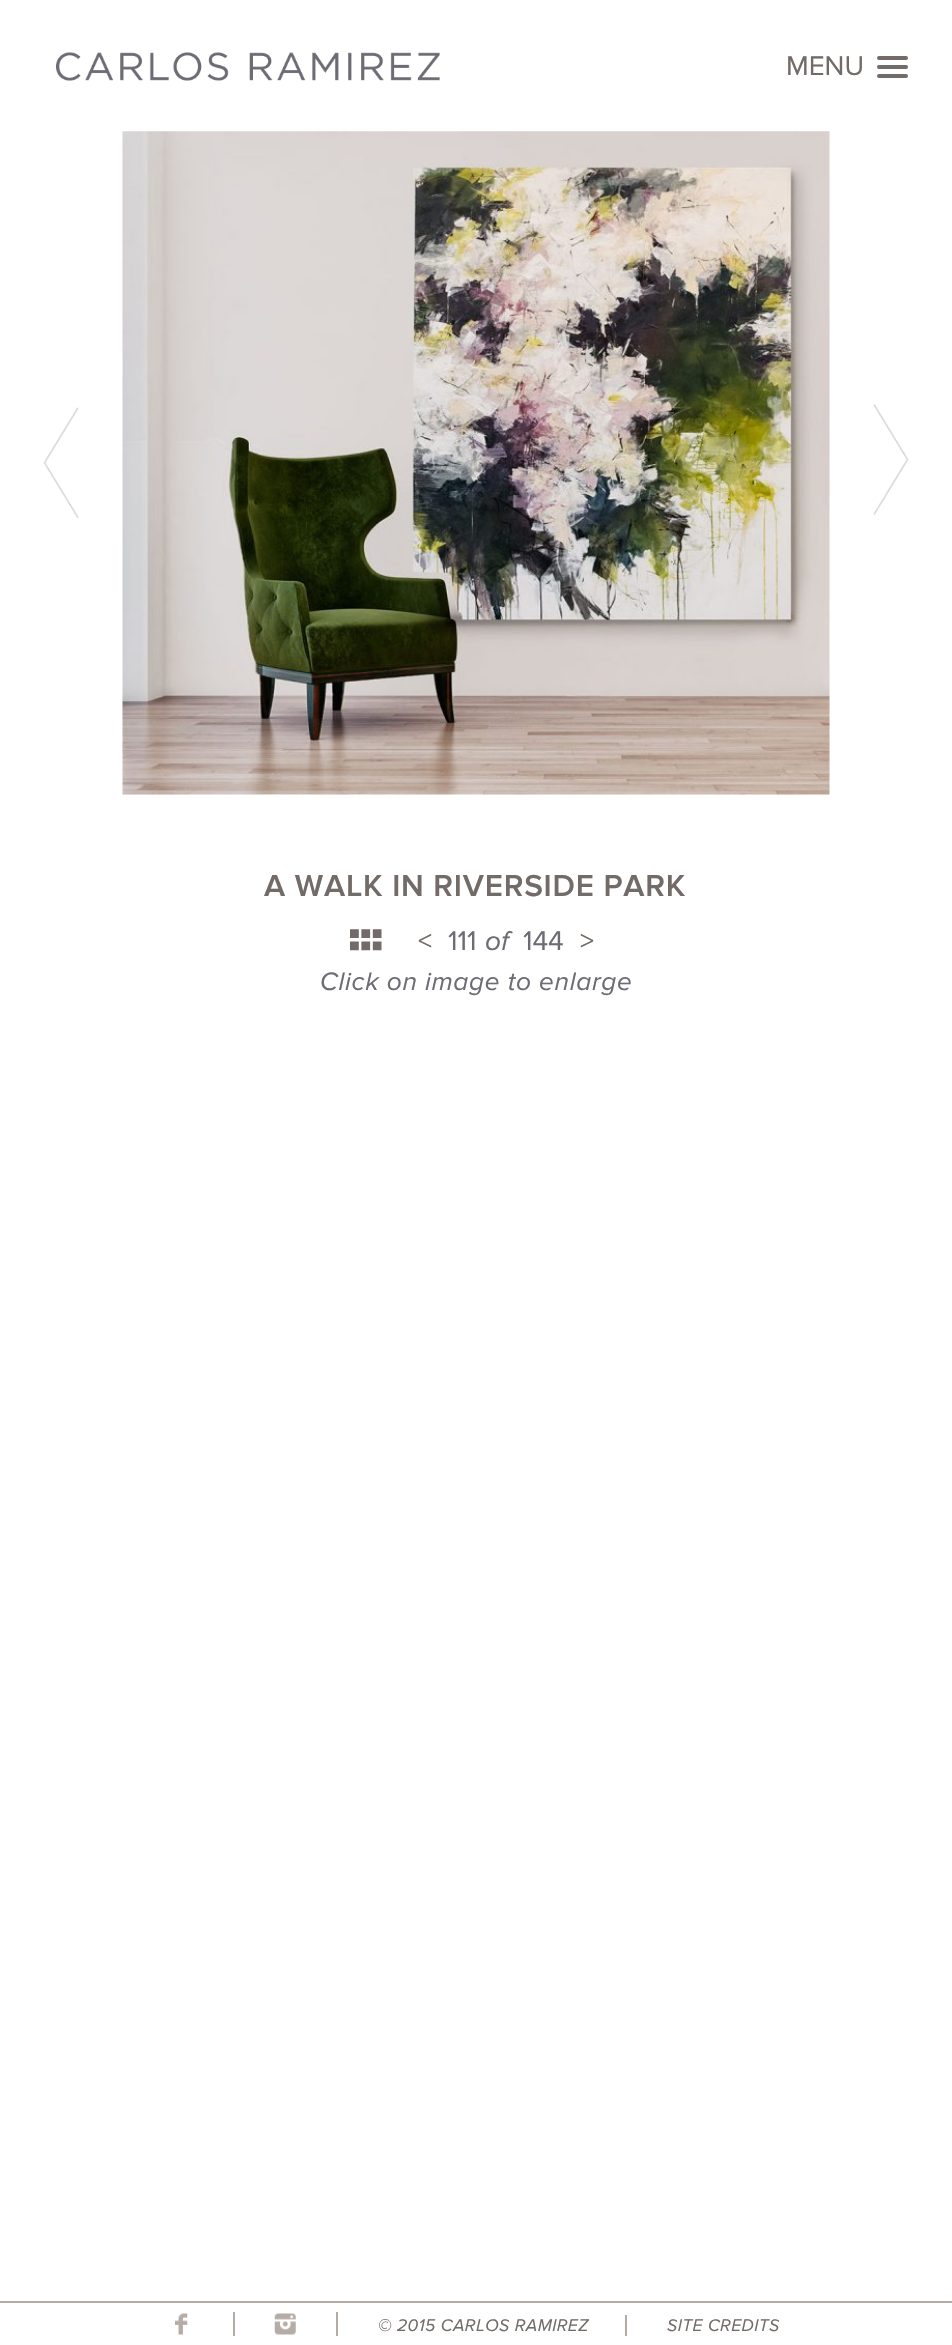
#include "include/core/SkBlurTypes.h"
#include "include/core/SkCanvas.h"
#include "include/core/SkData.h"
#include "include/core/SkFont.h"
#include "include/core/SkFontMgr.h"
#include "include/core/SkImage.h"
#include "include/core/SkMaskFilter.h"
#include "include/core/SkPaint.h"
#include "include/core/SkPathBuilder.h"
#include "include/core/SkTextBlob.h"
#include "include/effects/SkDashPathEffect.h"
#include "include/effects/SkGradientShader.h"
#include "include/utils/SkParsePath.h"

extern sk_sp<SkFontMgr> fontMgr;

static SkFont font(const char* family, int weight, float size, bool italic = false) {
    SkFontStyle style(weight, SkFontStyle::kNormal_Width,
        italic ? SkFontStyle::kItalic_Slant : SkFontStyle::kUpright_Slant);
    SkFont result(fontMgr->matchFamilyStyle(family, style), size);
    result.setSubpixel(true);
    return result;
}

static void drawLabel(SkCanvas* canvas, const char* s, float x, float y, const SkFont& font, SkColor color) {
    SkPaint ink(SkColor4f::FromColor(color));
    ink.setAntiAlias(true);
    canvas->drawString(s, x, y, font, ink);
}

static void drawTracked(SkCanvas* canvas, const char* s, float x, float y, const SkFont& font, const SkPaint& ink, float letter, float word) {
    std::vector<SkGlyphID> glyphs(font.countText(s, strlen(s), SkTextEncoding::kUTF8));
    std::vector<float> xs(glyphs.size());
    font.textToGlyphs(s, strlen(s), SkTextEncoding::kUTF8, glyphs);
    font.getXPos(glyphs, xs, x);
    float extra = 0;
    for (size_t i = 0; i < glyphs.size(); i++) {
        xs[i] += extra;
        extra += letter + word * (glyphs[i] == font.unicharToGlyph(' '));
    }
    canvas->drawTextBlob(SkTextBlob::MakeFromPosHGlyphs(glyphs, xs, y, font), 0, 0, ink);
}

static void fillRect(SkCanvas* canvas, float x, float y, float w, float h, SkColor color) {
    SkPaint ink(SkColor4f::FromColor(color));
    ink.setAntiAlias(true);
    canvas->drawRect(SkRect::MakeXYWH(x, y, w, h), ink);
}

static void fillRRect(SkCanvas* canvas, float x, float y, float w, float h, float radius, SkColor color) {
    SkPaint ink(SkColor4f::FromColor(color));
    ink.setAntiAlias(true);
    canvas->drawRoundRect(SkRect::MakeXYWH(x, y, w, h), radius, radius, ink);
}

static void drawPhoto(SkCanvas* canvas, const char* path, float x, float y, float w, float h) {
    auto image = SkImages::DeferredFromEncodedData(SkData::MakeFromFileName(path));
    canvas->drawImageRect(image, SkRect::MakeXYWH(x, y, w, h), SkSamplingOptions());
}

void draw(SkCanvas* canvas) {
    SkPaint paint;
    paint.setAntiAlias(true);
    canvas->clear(0xFFFFFFFF);
    SkFont font1 = font("Proxima Nova", 400, 28);
    drawLabel(canvas, "MENU", 786, 75, font1, 0xFF736B67);
    fillRRect(canvas, 877, 56, 31, 4, 2, 0xFF736B67);
    fillRRect(canvas, 877, 65, 31, 4, 2, 0xFF736B67);
    fillRRect(canvas, 877, 74, 31, 4, 2, 0xFF736B67);
    drawPhoto(canvas, "assets/img1.png", 56, 52, 384, 29);
    drawPhoto(canvas, "assets/img2.png", 43, 407, 36, 111);
    drawPhoto(canvas, "assets/img3.png", 122, 131, 708, 664);
    drawPhoto(canvas, "assets/img4.png", 873, 404, 36, 111);
    SkFont font2 = font("Proxima Nova", 600, 31.5f);
    paint.setColor(0xFF736B67);
    drawTracked(canvas, "A WALK IN RIVERSIDE PARK", 264, 896, font2, paint, 0.75f, 0);
    drawPhoto(canvas, "assets/img5.png", 350, 929, 32, 22);
    drawLabel(canvas, "<", 418, 950, font1, 0xFF736B67);
    drawLabel(canvas, "111", 448, 950, font1, 0xFF6D6C75);
    SkFont font3 = font("Proxima Nova", 400, 28, true);
    drawLabel(canvas, "of", 485, 950, font3, 0xFF6D6C75);
    drawLabel(canvas, "144", 523, 950, font1, 0xFF6D6C75);
    drawLabel(canvas, ">", 580, 950, font1, 0xFF736B67);
    SkFont font4 = font("Proxima Nova", 400, 26.25f, true);
    paint.setColor(0xFF6D6C75);
    drawTracked(canvas, "Click on image to enlarge", 320, 990, font4, paint, 0.65f, 0);
    fillRect(canvas, 0, 2301, 952, 2, 0xFFB5ABA5);
    fillRect(canvas, 233, 2312, 2, 24, 0xFFB5ABA5);
    drawPhoto(canvas, "assets/img6.png", 175, 2313, 13, 22);
    fillRect(canvas, 336, 2312, 2, 24, 0xFFB5ABA5);
    drawPhoto(canvas, "assets/img7.png", 274, 2313, 22, 22);
    fillRect(canvas, 625, 2315, 2, 21, 0xFFB5ABA5);
    SkFont font5 = font("Proxima Nova", 400, 17.5f, true);
    paint.setColor(0xFF736B67);
    drawTracked(canvas, "© 2015 CARLOS RAMIREZ", 378, 2331, font5, paint, 0.4f, 0);
    drawTracked(canvas, "SITE CREDITS", 667, 2331, font5, paint, 0.4f, 0);
}
